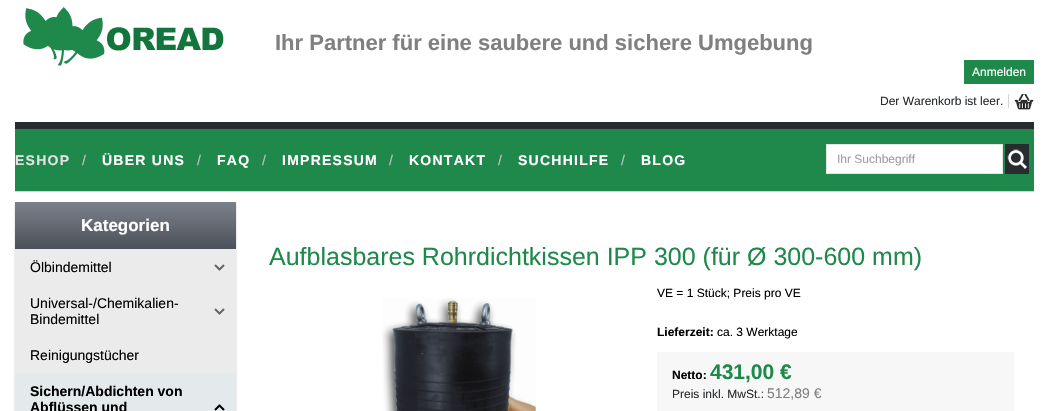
#include "include/core/SkBlurTypes.h"
#include "include/core/SkCanvas.h"
#include "include/core/SkData.h"
#include "include/core/SkFont.h"
#include "include/core/SkFontMgr.h"
#include "include/core/SkImage.h"
#include "include/core/SkMaskFilter.h"
#include "include/core/SkPaint.h"
#include "include/core/SkPathBuilder.h"
#include "include/core/SkTextBlob.h"
#include "include/effects/SkDashPathEffect.h"
#include "include/effects/SkGradientShader.h"
#include "include/utils/SkParsePath.h"

extern sk_sp<SkFontMgr> fontMgr;

static SkFont font(const char* family, int weight, float size, bool italic = false) {
    SkFontStyle style(weight, SkFontStyle::kNormal_Width,
        italic ? SkFontStyle::kItalic_Slant : SkFontStyle::kUpright_Slant);
    SkFont result(fontMgr->matchFamilyStyle(family, style), size);
    result.setSubpixel(true);
    return result;
}

static void drawLabel(SkCanvas* canvas, const char* s, float x, float y, const SkFont& font, SkColor color) {
    SkPaint ink(SkColor4f::FromColor(color));
    ink.setAntiAlias(true);
    canvas->drawString(s, x, y, font, ink);
}

static void drawTracked(SkCanvas* canvas, const char* s, float x, float y, const SkFont& font, const SkPaint& ink, float letter, float word) {
    std::vector<SkGlyphID> glyphs(font.countText(s, strlen(s), SkTextEncoding::kUTF8));
    std::vector<float> xs(glyphs.size());
    font.textToGlyphs(s, strlen(s), SkTextEncoding::kUTF8, glyphs);
    font.getXPos(glyphs, xs, x);
    float extra = 0;
    for (size_t i = 0; i < glyphs.size(); i++) {
        xs[i] += extra;
        extra += letter + word * (glyphs[i] == font.unicharToGlyph(' '));
    }
    canvas->drawTextBlob(SkTextBlob::MakeFromPosHGlyphs(glyphs, xs, y, font), 0, 0, ink);
}

static void fillRect(SkCanvas* canvas, float x, float y, float w, float h, SkColor color) {
    SkPaint ink(SkColor4f::FromColor(color));
    ink.setAntiAlias(true);
    canvas->drawRect(SkRect::MakeXYWH(x, y, w, h), ink);
}

static void drawPhoto(SkCanvas* canvas, const char* path, float x, float y, float w, float h) {
    auto image = SkImages::DeferredFromEncodedData(SkData::MakeFromFileName(path));
    canvas->drawImageRect(image, SkRect::MakeXYWH(x, y, w, h), SkSamplingOptions());
}

void draw(SkCanvas* canvas) {
    SkPaint paint;
    paint.setAntiAlias(true);
    canvas->clear(0xFFFFFFFF);
    drawPhoto(canvas, "assets/img1.png", 23, 7, 201, 59);
    SkFont font1 = font("Liberation Sans", 700, 22);
    drawLabel(canvas, "Ihr Partner für eine saubere und sichere Umgebung", 275, 50, font1, 0xFF808080);
    fillRect(canvas, 964, 60, 70, 24, 0xFF1F894C);
    SkFont font2 = font("Liberation Sans", 400, 12);
    drawLabel(canvas, "Anmelden", 972, 76, font2, 0xFFFFFFFF);
    drawPhoto(canvas, "assets/img2.png", 1014, 94, 20, 16);
    fillRect(canvas, 1008, 94, 1, 14, 0xFFD3D3D3);
    drawLabel(canvas, "Der Warenkorb ist leer.", 880, 105, font2, 0xFF282C2F);
    fillRect(canvas, 15, 129, 1019, 62, 0xFF1F894C);
    fillRect(canvas, 15, 122, 1019, 7, 0xFF282C2F);
    fillRect(canvas, 15, 191, 1019, 1, 0xFFD3D3D3);
    SkFont font3 = font("Liberation Sans", 700, 14);
    paint.setColor(0xFFE2E2E2);
    drawTracked(canvas, "ESHOP", 15, 165, font3, paint, 1.25f, 0);
    SkFont font4 = font("Liberation Sans", 400, 14);
    paint.setColor(0xFFC0C0C0);
    drawTracked(canvas, "/", 82, 165, font4, paint, 1.25f, 0);
    paint.setColor(0xFFFFFFFF);
    drawTracked(canvas, "ÜBER UNS", 102, 165, font3, paint, 1.25f, 0);
    paint.setColor(0xFFC0C0C0);
    drawTracked(canvas, "/", 197, 165, font4, paint, 1.25f, 0);
    paint.setColor(0xFFFFFFFF);
    drawTracked(canvas, "FAQ", 217, 165, font3, paint, 1.25f, 0);
    paint.setColor(0xFFC0C0C0);
    drawTracked(canvas, "/", 262, 165, font4, paint, 1.25f, 0);
    paint.setColor(0xFFFFFFFF);
    drawTracked(canvas, "IMPRESSUM", 282, 165, font3, paint, 1.25f, 0);
    paint.setColor(0xFFC0C0C0);
    drawTracked(canvas, "/", 389, 165, font4, paint, 1.25f, 0);
    paint.setColor(0xFFFFFFFF);
    drawTracked(canvas, "KONTAKT", 409, 165, font3, paint, 1.25f, 0);
    paint.setColor(0xFFC0C0C0);
    drawTracked(canvas, "/", 498, 165, font4, paint, 1.25f, 0);
    paint.setColor(0xFFFFFFFF);
    drawTracked(canvas, "SUCHHILFE", 518, 165, font3, paint, 1.25f, 0);
    paint.setColor(0xFFC0C0C0);
    drawTracked(canvas, "/", 621, 165, font4, paint, 1.25f, 0);
    paint.setColor(0xFFFFFFFF);
    drawTracked(canvas, "BLOG", 641, 165, font3, paint, 1.25f, 0);
    canvas->drawRect(SkRect::MakeXYWH(826.5f, 144.5f, 176, 29), paint);
    paint.setStroke(true);
    paint.setStrokeWidth(1);
    paint.setColor(0xFFE5E5E5);
    canvas->drawRect(SkRect::MakeXYWH(826.5f, 144.5f, 176, 29), paint);
    drawLabel(canvas, "Ihr Suchbegriff", 837, 163, font2, 0xFF9C9C9C);
    fillRect(canvas, 1005, 144, 24, 30, 0xFF282C2F);
    drawPhoto(canvas, "assets/img3.png", 1007, 149, 20, 20);
    paint.setStroke(false);
    paint.setColor(0x1A000000);
    paint.setMaskFilter(SkMaskFilter::MakeBlur(kNormal_SkBlurStyle, 1));
    canvas->drawRect(SkRect::MakeXYWH(15, 203, 221, 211), paint);
    paint.setMaskFilter(nullptr);
    paint.setColor(0x66000000);
    paint.setMaskFilter(SkMaskFilter::MakeBlur(kNormal_SkBlurStyle, 1));
    canvas->drawRect(SkRect::MakeXYWH(16, 204, 219, 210), paint);
    paint.setMaskFilter(nullptr);
    {
        const SkColor colors[] = {0xFF7C828B, 0xFF4B5059};
        const float stops[] = {0, 1};
        const SkPoint ends[] = {{126, 202}, {126, 249}};
        paint.setShader(SkGradientShader::MakeLinear(ends, colors, stops, 2, SkTileMode::kClamp));
        paint.setAlpha(255);
    }
    canvas->drawRect(SkRect::MakeXYWH(15, 202, 221, 47), paint);
    SkFont font5 = font("Liberation Sans", 700, 17);
    drawLabel(canvas, "Kategorien", 81, 231, font5, 0xFFFFFFFF);
    fillRect(canvas, 15, 249, 221, 124, 0xFFEBEBEB);
    drawPhoto(canvas, "assets/img4.png", 214, 264, 11, 7);
    drawLabel(canvas, "Ölbindemittel", 30, 272, font4, 0xFF000000);
    drawPhoto(canvas, "assets/img4.png", 214, 308, 11, 7);
    drawLabel(canvas, "Universal-/Chemikalien-", 30, 308, font4, 0xFF000000);
    drawLabel(canvas, "Bindemittel", 30, 324, font4, 0xFF000000);
    drawLabel(canvas, "Reinigungstücher", 30, 360, font4, 0xFF000000);
    fillRect(canvas, 15, 373, 221, 38, 0xFFE4EAEB);
    drawPhoto(canvas, "assets/img5.png", 214, 404, 11, 7);
    drawLabel(canvas, "Sichern/Abdichten von", 30, 396, font3, 0xFF000000);
    drawLabel(canvas, "Abflüssen und", 30, 412, font3, 0xFF000000);
    SkFont font6 = font("Liberation Sans", 400, 25);
    drawLabel(canvas, "Aufblasbares Rohrdichtkissen IPP 300 (für Ø 300-600 mm)", 269, 265, font6, 0xFF1F894C);
    drawPhoto(canvas, "assets/img6.png", 382, 298, 154, 113);
    drawLabel(canvas, "VE = 1 Stück; Preis pro VE", 657, 297, font2, 0xFF000000);
    SkFont font7 = font("Liberation Sans", 700, 12);
    drawLabel(canvas, "Lieferzeit:", 657, 336, font7, 0xFF000000);
    drawLabel(canvas, "ca. 3 Werktage", 717, 336, font2, 0xFF000000);
    fillRect(canvas, 657, 352, 357, 59, 0xFFF7F7F7);
    drawLabel(canvas, "Netto:", 672, 379, font7, 0xFF000000);
    SkFont font8 = font("Liberation Sans", 700, 21);
    drawLabel(canvas, "431,00 €", 710, 379, font8, 0xFF1F894C);
    drawLabel(canvas, "Preis inkl. MwSt.:", 672, 398, font2, 0xFF282C2F);
    drawLabel(canvas, "512,89 €", 767, 398, font4, 0xFF808080);
}
